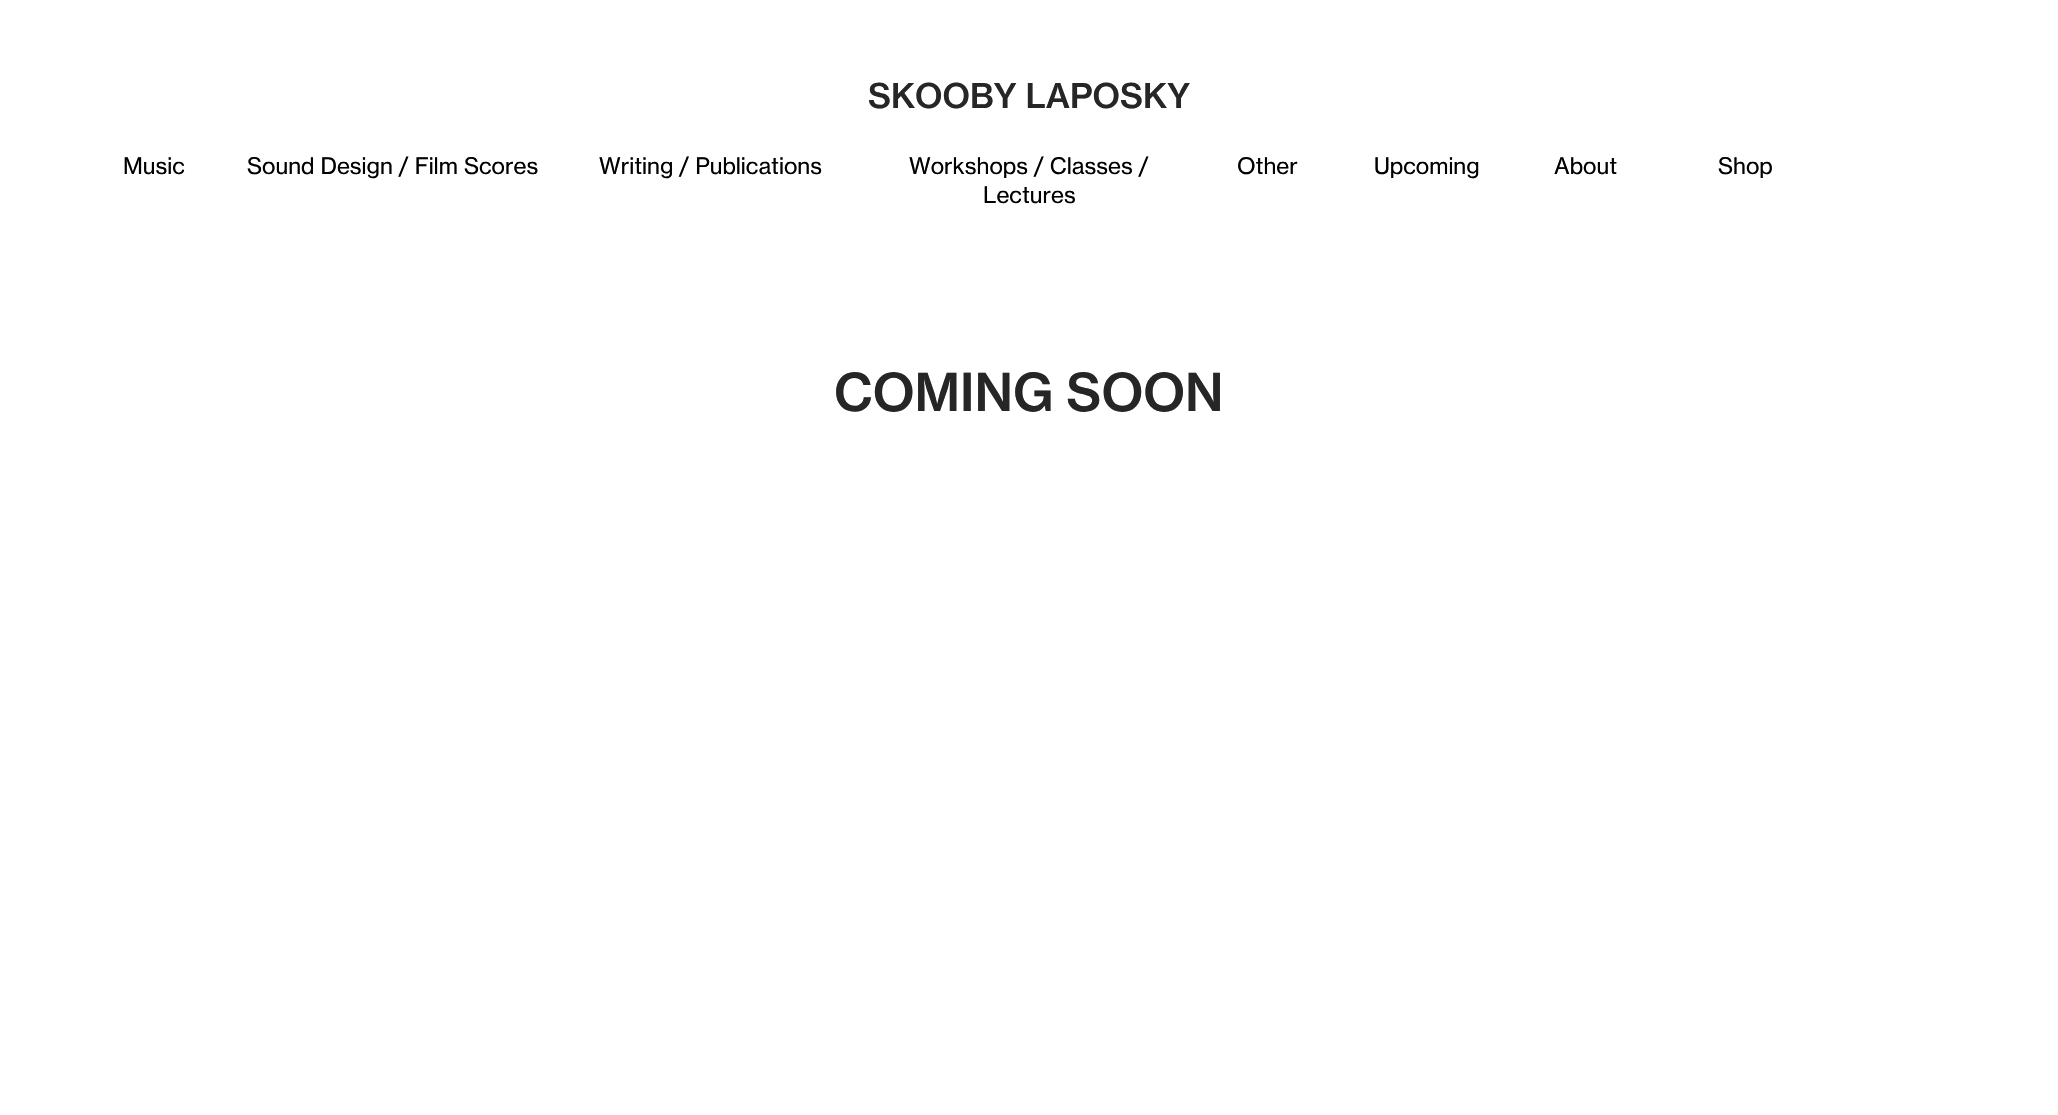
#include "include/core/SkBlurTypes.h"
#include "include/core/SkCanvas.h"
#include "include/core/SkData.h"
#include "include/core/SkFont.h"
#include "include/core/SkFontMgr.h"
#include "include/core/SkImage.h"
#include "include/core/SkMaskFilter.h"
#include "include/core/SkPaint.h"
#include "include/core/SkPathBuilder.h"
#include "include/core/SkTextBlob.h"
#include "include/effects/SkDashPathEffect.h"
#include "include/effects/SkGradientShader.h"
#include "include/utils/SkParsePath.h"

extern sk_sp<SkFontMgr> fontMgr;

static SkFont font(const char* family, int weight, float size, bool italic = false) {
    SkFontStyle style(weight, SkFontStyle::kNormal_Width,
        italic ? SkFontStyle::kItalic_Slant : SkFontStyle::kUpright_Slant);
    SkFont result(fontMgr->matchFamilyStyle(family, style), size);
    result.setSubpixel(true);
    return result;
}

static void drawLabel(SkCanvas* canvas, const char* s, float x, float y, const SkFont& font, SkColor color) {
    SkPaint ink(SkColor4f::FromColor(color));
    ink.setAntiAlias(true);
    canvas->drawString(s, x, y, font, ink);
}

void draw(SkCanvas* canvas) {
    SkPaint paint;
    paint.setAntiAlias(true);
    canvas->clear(0xFFFFFFFF);
    SkFont font1 = font("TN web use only", 500, 33.75f);
    drawLabel(canvas, "SKOOBY LAPOSKY", 868, 108, font1, 0xFF262626);
    SkFont font2 = font("TN web use only", 400, 22.5f);
    drawLabel(canvas, "Music", 123, 174, font2, 0xFF000000);
    drawLabel(canvas, "Sound Design / Film Scores", 247, 174, font2, 0xFF000000);
    drawLabel(canvas, "Writing / Publications", 599, 174, font2, 0xFF000000);
    drawLabel(canvas, "Workshops / Classes /", 909, 174, font2, 0xFF000000);
    drawLabel(canvas, "Lectures", 983, 203, font2, 0xFF000000);
    drawLabel(canvas, "Other", 1237, 174, font2, 0xFF000000);
    drawLabel(canvas, "Upcoming", 1374, 174, font2, 0xFF000000);
    drawLabel(canvas, "About", 1554, 174, font2, 0xFF000000);
    drawLabel(canvas, "Shop", 1718, 174, font2, 0xFF000000);
    SkFont font3 = font("TN web use only", 500, 51.5f);
    drawLabel(canvas, "COMING SOON", 834, 411, font3, 0xFF262626);
}
